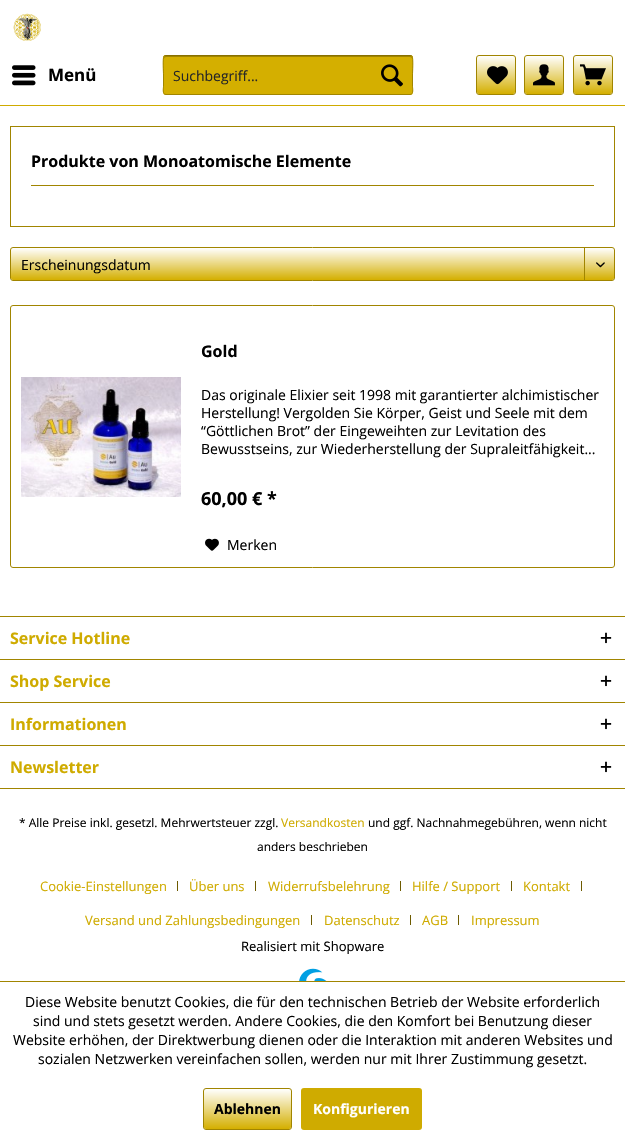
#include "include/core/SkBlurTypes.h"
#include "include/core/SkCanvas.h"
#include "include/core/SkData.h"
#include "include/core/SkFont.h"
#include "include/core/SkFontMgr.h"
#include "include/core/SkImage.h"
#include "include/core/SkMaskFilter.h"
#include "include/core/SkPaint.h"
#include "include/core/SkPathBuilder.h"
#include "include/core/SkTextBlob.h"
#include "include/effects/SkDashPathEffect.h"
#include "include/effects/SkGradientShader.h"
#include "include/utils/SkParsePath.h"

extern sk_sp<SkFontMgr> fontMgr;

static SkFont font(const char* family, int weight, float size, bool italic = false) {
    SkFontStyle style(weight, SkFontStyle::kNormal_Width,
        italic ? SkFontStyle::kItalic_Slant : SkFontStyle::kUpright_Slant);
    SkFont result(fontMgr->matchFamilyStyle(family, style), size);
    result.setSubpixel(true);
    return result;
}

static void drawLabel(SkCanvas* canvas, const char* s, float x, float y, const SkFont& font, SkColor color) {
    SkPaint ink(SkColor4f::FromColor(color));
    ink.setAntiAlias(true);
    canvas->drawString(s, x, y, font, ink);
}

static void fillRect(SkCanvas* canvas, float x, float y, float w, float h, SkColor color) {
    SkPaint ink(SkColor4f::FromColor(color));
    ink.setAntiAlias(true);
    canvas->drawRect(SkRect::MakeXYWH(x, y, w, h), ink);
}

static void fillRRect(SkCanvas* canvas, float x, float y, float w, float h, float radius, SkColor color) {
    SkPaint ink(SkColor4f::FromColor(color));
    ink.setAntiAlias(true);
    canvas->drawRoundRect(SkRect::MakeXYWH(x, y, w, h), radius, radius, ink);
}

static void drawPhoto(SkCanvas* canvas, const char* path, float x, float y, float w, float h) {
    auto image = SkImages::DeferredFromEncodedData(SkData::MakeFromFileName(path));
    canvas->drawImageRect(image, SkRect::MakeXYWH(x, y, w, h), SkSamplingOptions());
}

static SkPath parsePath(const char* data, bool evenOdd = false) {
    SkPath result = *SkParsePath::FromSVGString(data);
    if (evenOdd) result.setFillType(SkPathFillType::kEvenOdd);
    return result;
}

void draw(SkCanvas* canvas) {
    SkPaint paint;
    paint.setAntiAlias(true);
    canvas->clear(0xFFFFFFFF);
    fillRect(canvas, 0, 105, 625, 1, 0xFFCFAB00);
    drawPhoto(canvas, "assets/img1.png", 13, 13, 28, 28);
    drawPhoto(canvas, "assets/img2.png", 12, 65, 24, 21);
    SkFont font1 = font("Open Sans", 700, 17);
    drawLabel(canvas, "Menü", 48, 81, font1, 0xFF000000);
    fillRRect(canvas, 163, 55, 250, 40, 3, 0xFFD4AF00);
    paint.setColor(0xFFA18500);
    canvas->drawPath(parsePath("M166 57H410C411 57 412 58 412 59C412 58 412 56 410 56H166C164 56 164 58 164 59C164 58 165 57 166 57Z"), paint);
    paint.setStroke(true);
    paint.setStrokeWidth(1);
    paint.setColor(0xFF887000);
    canvas->drawPath(parsePath("M164 56L166 55.5H410L412 56"), paint);
    paint.setColor(0xFFA18500);
    canvas->drawPath(parsePath("M412 56C413.5 58 412.5 72 412.5 75V86.5C412.5 88 414 94.5 410 94.5H166C162 94.5 163.5 88 163.5 86.5V75C163.5 72 162.5 58 164 56"), paint);
    SkFont font2 = font("Open Sans", 400, 14);
    drawLabel(canvas, "Suchbegriff...", 173, 81, font2, 0xFF262626);
    drawPhoto(canvas, "assets/img3.png", 381, 64, 22, 23);
    paint.setStroke(false);
    {
        const SkColor colors[] = {0xFFFFFFFF, 0xFFD4AF00};
        const float stops[] = {0, 1};
        const SkPoint ends[] = {{496, 56}, {496, 94}};
        paint.setShader(SkGradientShader::MakeLinear(ends, colors, stops, 2, SkTileMode::kClamp));
        paint.setAlpha(255);
    }
    canvas->drawRoundRect(SkRect::MakeXYWH(477, 56, 38, 38), 2, 2, paint);
    paint.setStroke(true);
    paint.setShader(nullptr);
    paint.setColor(0xFFA18500);
    canvas->drawRoundRect(SkRect::MakeXYWH(476.5f, 55.5f, 39, 39), 2.5f, 2.5f, paint);
    drawPhoto(canvas, "assets/img4.png", 487, 66, 21, 19);
    paint.setStroke(false);
    {
        const SkColor colors[] = {0xFFFFFFFF, 0xFFD4AF00};
        const float stops[] = {0, 1};
        const SkPoint ends[] = {{544, 56}, {544, 94}};
        paint.setShader(SkGradientShader::MakeLinear(ends, colors, stops, 2, SkTileMode::kClamp));
        paint.setAlpha(255);
    }
    canvas->drawRoundRect(SkRect::MakeXYWH(525, 56, 38, 38), 2, 2, paint);
    paint.setStroke(true);
    paint.setShader(nullptr);
    paint.setColor(0xFFA18500);
    canvas->drawRoundRect(SkRect::MakeXYWH(524.5f, 55.5f, 39, 39), 2.5f, 2.5f, paint);
    drawPhoto(canvas, "assets/img5.png", 533, 64, 22, 22);
    paint.setStroke(false);
    {
        const SkColor colors[] = {0xFFFFFFFF, 0xFFD4AF00};
        const float stops[] = {0, 1};
        const SkPoint ends[] = {{593, 56}, {593, 94}};
        paint.setShader(SkGradientShader::MakeLinear(ends, colors, stops, 2, SkTileMode::kClamp));
        paint.setAlpha(255);
    }
    canvas->drawRoundRect(SkRect::MakeXYWH(574, 56, 38, 38), 2, 2, paint);
    paint.setStroke(true);
    paint.setShader(nullptr);
    paint.setColor(0xFFA18500);
    canvas->drawRoundRect(SkRect::MakeXYWH(573.5f, 55.5f, 39, 39), 2.5f, 2.5f, paint);
    drawPhoto(canvas, "assets/img6.png", 580, 64, 26, 22);
    canvas->drawRect(SkRect::MakeXYWH(10.5f, 126.5f, 604, 100), paint);
    fillRect(canvas, 31, 185, 563, 1, 0xFFA18500);
    SkFont font3 = font("Open Sans", 700, 16);
    drawLabel(canvas, "Produkte von Monoatomische Elemente", 31, 167, font3, 0xFF000000);
    paint.setStroke(false);
    {
        const SkColor colors[] = {0xFFFFFFFF, 0xFFD4AF00};
        const float stops[] = {0, 1};
        const SkPoint ends[] = {{313, 248}, {313, 280}};
        paint.setShader(SkGradientShader::MakeLinear(ends, colors, stops, 2, SkTileMode::kClamp));
        paint.setAlpha(255);
    }
    canvas->drawRoundRect(SkRect::MakeXYWH(11, 248, 603, 32), 2, 2, paint);
    paint.setStroke(true);
    paint.setShader(nullptr);
    paint.setColor(0xFFA18500);
    canvas->drawRoundRect(SkRect::MakeXYWH(10.5f, 247.5f, 604, 33), 2.5f, 2.5f, paint);
    drawLabel(canvas, "Erscheinungsdatum", 21, 270, font2, 0xFF000000);
    fillRect(canvas, 584, 248, 1, 33, 0xFFA18500);
    drawPhoto(canvas, "assets/img7.png", 596, 262, 9, 6);
    canvas->drawRoundRect(SkRect::MakeXYWH(10.5f, 305.5f, 604, 262), 2.5f, 2.5f, paint);
    drawLabel(canvas, "Gold", 201, 357, font3, 0xFF000000);
    drawPhoto(canvas, "assets/img8.png", 21, 377, 160, 120);
    drawLabel(canvas, "Das originale Elixier seit 1998 mit garantierter alchimistischer", 201, 400, font2, 0xFF000000);
    drawLabel(canvas, "Herstellung! Vergolden Sie Körper, Geist und Seele mit dem", 201, 418, font2, 0xFF000000);
    drawLabel(canvas, "“Göttlichen Brot” der Eingeweihten zur Levitation des", 201, 436, font2, 0xFF000000);
    drawLabel(canvas, "Bewusstseins, zur Wiederherstellung der Supraleitfähigkeit...", 201, 454, font2, 0xFF000000);
    SkFont font4 = font("Open Sans", 700, 18);
    drawLabel(canvas, "60,00 € *", 201, 505, font4, 0xFF000000);
    drawPhoto(canvas, "assets/img9.png", 205, 538, 14, 13);
    drawLabel(canvas, "Merken", 227, 550, font2, 0xFF000000);
    fillRect(canvas, 0, 616, 625, 1, 0xFFA18500);
    drawLabel(canvas, "Service Hotline", 10, 644, font3, 0xFFCFAB00);
    drawPhoto(canvas, "assets/img10.png", 600, 632, 12, 12);
    fillRect(canvas, 0, 659, 625, 1, 0xFFA18500);
    drawLabel(canvas, "Shop Service", 10, 687, font3, 0xFFCFAB00);
    drawPhoto(canvas, "assets/img10.png", 600, 675, 12, 12);
    fillRect(canvas, 0, 702, 625, 1, 0xFFA18500);
    drawLabel(canvas, "Informationen", 10, 730, font3, 0xFFCFAB00);
    drawPhoto(canvas, "assets/img10.png", 600, 718, 12, 12);
    fillRect(canvas, 0, 745, 625, 1, 0xFFA18500);
    fillRect(canvas, 0, 788, 625, 1, 0xFFA18500);
    drawLabel(canvas, "Newsletter", 10, 773, font3, 0xFFCFAB00);
    drawPhoto(canvas, "assets/img10.png", 600, 761, 12, 12);
    SkFont font5 = font("Open Sans", 400, 12);
    drawLabel(canvas, "* Alle Preise inkl. gesetzl. Mehrwertsteuer zzgl.", 19, 827, font5, 0xFF000000);
    drawLabel(canvas, "Versandkosten", 281, 827, font5, 0xFFCFAB00);
    drawLabel(canvas, "und ggf. Nachnahmegebühren, wenn nicht", 368, 827, font5, 0xFF000000);
    drawLabel(canvas, "anders beschrieben", 257, 851, font5, 0xFF000000);
    SkFont font6 = font("Open Sans", 400, 13);
    drawLabel(canvas, "Cookie-Einstellungen", 40, 891, font6, 0xFFCFAB00);
    fillRect(canvas, 177, 881, 1, 10, 0xFF6E5B00);
    drawLabel(canvas, "Über uns", 189, 891, font6, 0xFFCFAB00);
    fillRect(canvas, 255, 881, 1, 10, 0xFF6E5B00);
    drawLabel(canvas, "Widerrufsbelehrung", 268, 891, font6, 0xFFCFAB00);
    fillRect(canvas, 400, 881, 1, 10, 0xFF6E5B00);
    drawLabel(canvas, "Hilfe / Support", 412, 891, font6, 0xFFCFAB00);
    fillRect(canvas, 511, 881, 1, 10, 0xFF6E5B00);
    drawLabel(canvas, "Kontakt", 523, 891, font6, 0xFFCFAB00);
    fillRect(canvas, 581, 881, 1, 10, 0xFF6E5B00);
    drawLabel(canvas, "Versand und Zahlungsbedingungen", 85, 925, font6, 0xFFCFAB00);
    fillRect(canvas, 311, 915, 1, 10, 0xFF6E5B00);
    drawLabel(canvas, "Datenschutz", 324, 925, font6, 0xFFCFAB00);
    fillRect(canvas, 410, 915, 1, 10, 0xFF6E5B00);
    drawLabel(canvas, "AGB", 422, 925, font6, 0xFFCFAB00);
    fillRect(canvas, 458, 915, 1, 10, 0xFF6E5B00);
    drawLabel(canvas, "Impressum", 471, 925, font6, 0xFFCFAB00);
    drawLabel(canvas, "Realisiert mit Shopware", 241, 951, font6, 0xFF000000);
    drawPhoto(canvas, "assets/img11.png", 299, 968, 28, 13);
    fillRect(canvas, 0, 981, 625, 1, 0xFFA18500);
    drawLabel(canvas, "Diese Website benutzt Cookies, die für den technischen Betrieb der Website erforderlich", 25, 1007, font2, 0xFF000000);
    drawLabel(canvas, "sind und stets gesetzt werden. Andere Cookies, die den Komfort bei Benutzung dieser", 33, 1026, font2, 0xFF000000);
    drawLabel(canvas, "Website erhöhen, der Direktwerbung dienen oder die Interaktion mit anderen Websites und", 13, 1045, font2, 0xFF000000);
    drawLabel(canvas, "sozialen Netzwerken vereinfachen sollen, werden nur mit Ihrer Zustimmung gesetzt.", 38, 1064, font2, 0xFF000000);
    paint.setStroke(false);
    {
        const SkColor colors[] = {0xFFFFFFFF, 0xFFD4AF00};
        const float stops[] = {0, 1};
        const SkPoint ends[] = {{248, 1089}, {248, 1129}};
        paint.setShader(SkGradientShader::MakeLinear(ends, colors, stops, 2, SkTileMode::kClamp));
        paint.setAlpha(255);
    }
    canvas->drawRoundRect(SkRect::MakeXYWH(204, 1089, 87, 40), 2, 2, paint);
    paint.setStroke(true);
    paint.setShader(nullptr);
    paint.setColor(0xFFA18500);
    canvas->drawRoundRect(SkRect::MakeXYWH(203.5f, 1088.5f, 88, 41), 2.5f, 2.5f, paint);
    SkFont font7 = font("Open Sans", 700, 14);
    drawLabel(canvas, "Ablehnen", 214, 1114, font7, 0xFF000000);
    fillRRect(canvas, 301, 1088, 121, 42, 3, 0xFFCFAB00);
    drawLabel(canvas, "Konfigurieren", 313, 1114, font7, 0xFFFFFFFF);
}
